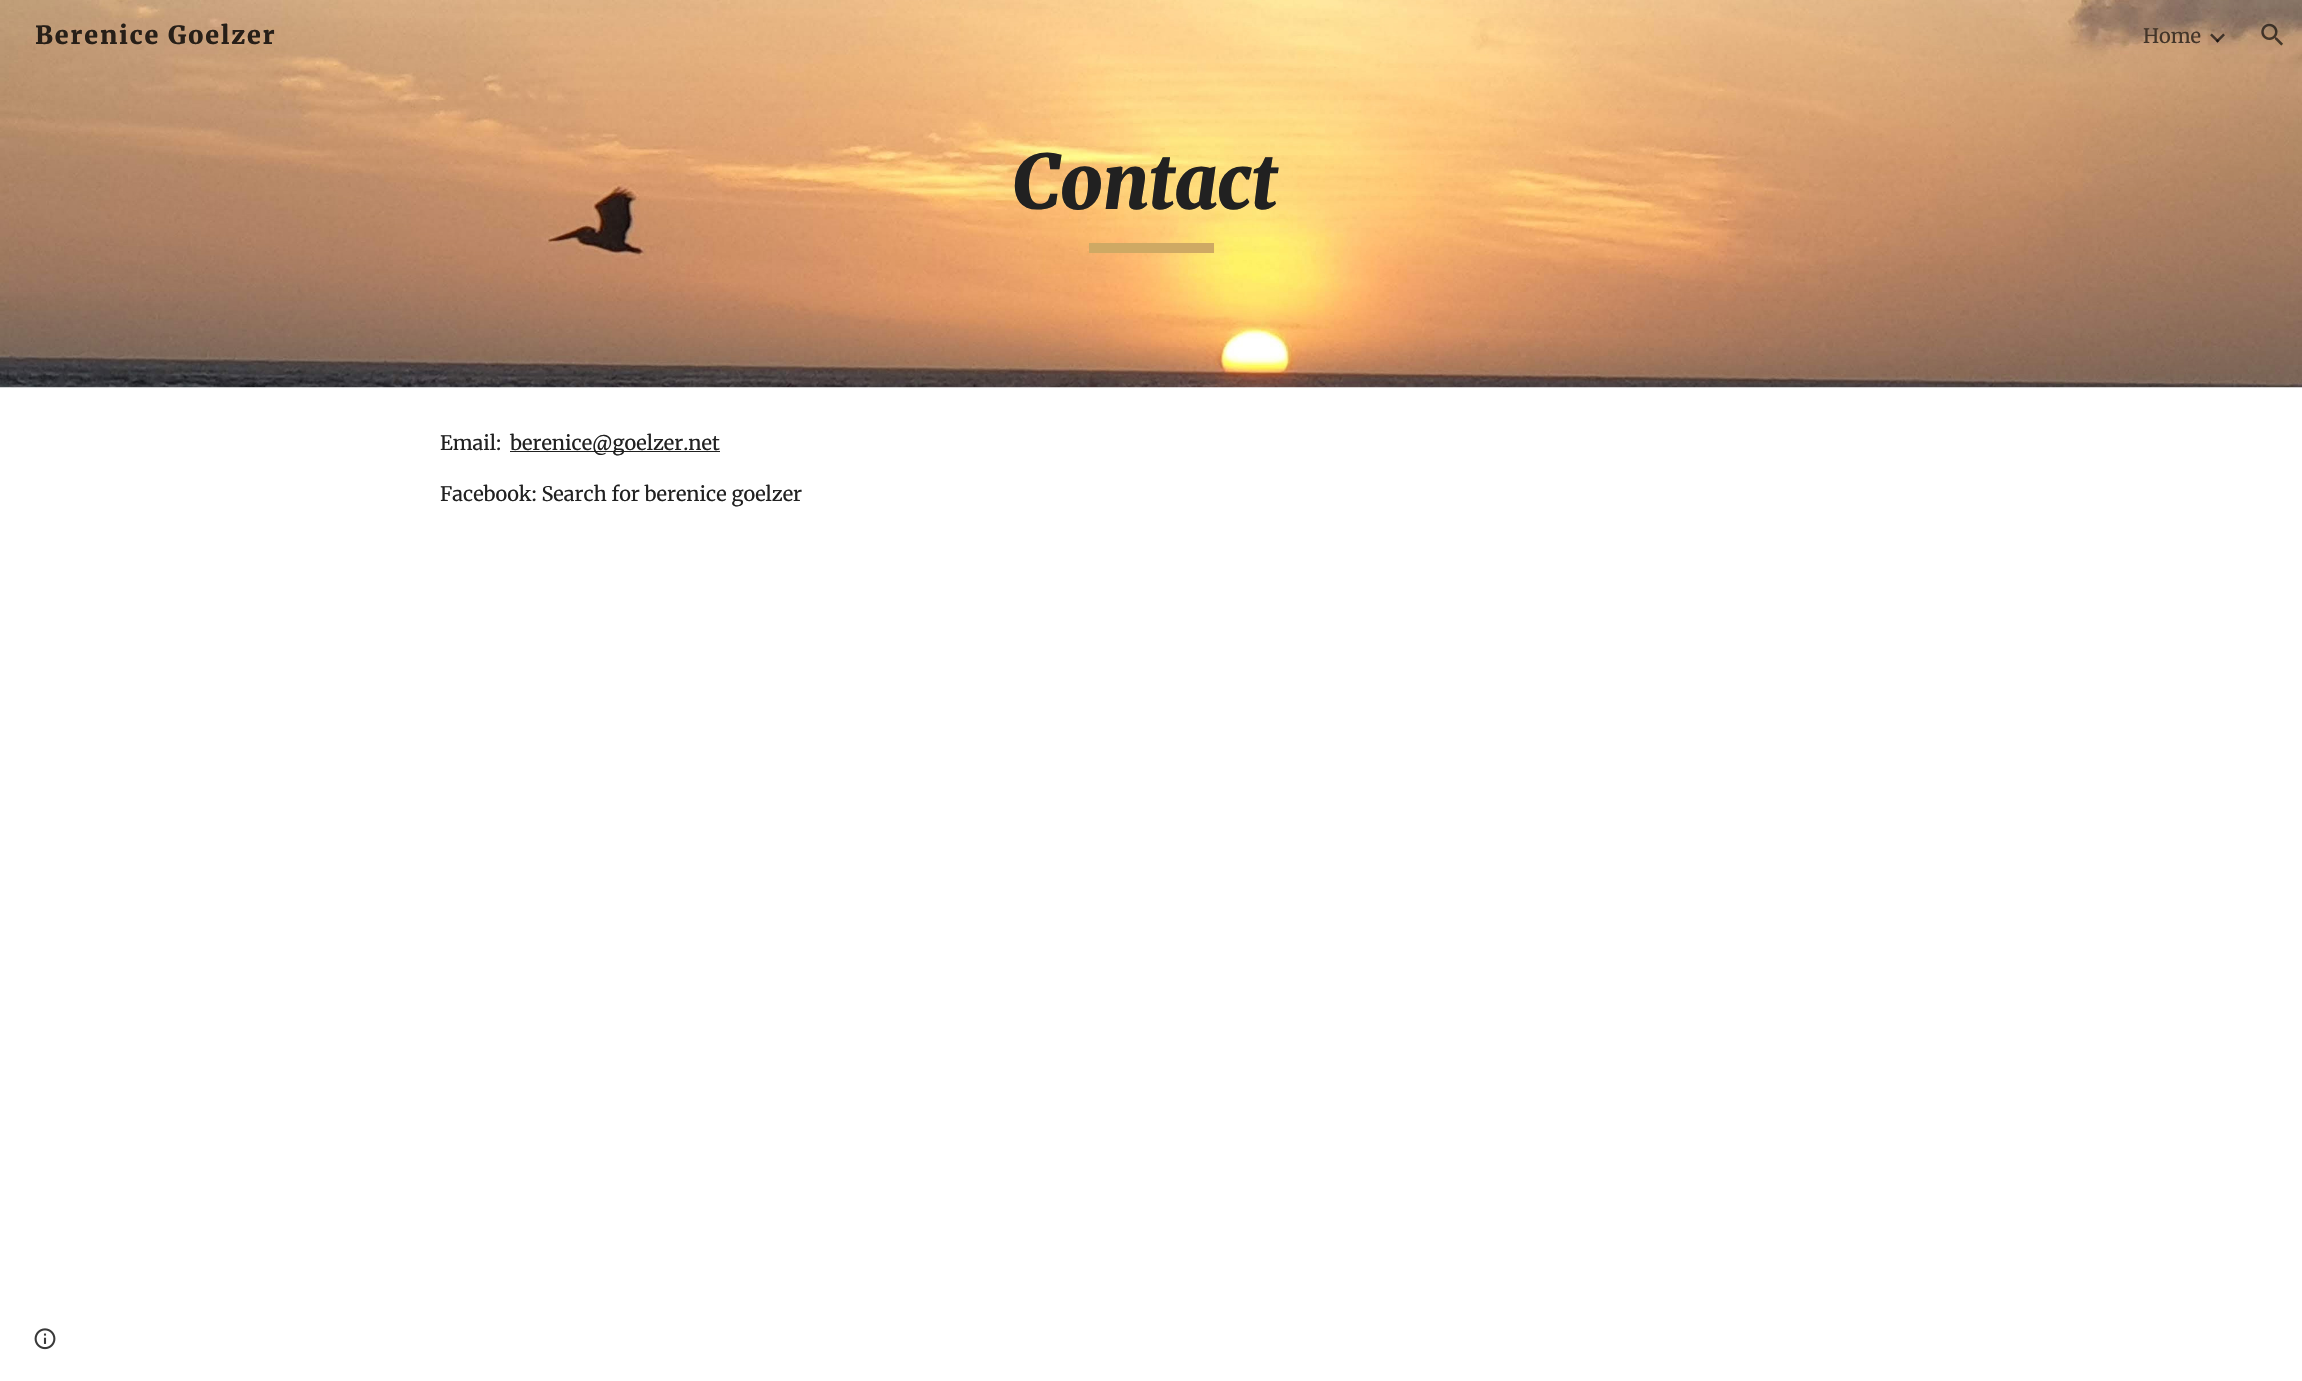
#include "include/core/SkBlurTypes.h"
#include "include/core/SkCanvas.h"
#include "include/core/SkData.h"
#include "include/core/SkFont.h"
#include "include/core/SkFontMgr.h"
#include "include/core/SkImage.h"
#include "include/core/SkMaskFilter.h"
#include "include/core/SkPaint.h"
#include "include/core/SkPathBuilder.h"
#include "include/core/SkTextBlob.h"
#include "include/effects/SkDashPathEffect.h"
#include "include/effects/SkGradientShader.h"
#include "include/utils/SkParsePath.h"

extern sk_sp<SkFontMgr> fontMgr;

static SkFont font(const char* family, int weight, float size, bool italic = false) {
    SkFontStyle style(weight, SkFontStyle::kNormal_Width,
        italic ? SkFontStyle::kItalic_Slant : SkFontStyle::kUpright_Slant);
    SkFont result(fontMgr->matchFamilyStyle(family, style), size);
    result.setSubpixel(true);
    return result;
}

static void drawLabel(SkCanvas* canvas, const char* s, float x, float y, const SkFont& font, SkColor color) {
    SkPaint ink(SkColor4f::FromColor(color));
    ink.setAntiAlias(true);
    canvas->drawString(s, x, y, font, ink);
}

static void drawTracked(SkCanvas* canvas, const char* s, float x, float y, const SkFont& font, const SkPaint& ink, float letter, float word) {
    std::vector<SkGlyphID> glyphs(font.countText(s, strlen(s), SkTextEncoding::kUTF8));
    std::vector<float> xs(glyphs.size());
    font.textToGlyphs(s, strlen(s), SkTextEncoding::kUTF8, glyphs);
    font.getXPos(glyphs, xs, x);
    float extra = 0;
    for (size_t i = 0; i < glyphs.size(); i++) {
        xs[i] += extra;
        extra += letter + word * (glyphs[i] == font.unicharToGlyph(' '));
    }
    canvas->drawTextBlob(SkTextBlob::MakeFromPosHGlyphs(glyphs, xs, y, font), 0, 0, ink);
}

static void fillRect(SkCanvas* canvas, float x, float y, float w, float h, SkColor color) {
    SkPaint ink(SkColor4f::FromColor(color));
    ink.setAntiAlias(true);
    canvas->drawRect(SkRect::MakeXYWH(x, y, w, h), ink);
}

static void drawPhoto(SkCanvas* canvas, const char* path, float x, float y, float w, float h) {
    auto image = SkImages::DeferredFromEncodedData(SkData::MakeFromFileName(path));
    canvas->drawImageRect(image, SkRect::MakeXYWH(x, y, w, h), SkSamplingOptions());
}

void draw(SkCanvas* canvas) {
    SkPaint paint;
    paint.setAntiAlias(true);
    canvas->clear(0xFFFFFFFF);
    drawPhoto(canvas, "assets/img3.png", 0, 0, 2302, 388);
    SkFont font1 = font("Merriweather", 900, 25);
    paint.setColor(0xFF271F18);
    drawTracked(canvas, "Berenice Goelzer", 35, 44, font1, paint, 1.9f, 0);
    SkFont font2 = font("Merriweather", 400, 20);
    drawLabel(canvas, "Home", 2143, 43, font2, 0xFF433529);
    drawPhoto(canvas, "assets/img1.png", 2210, 33, 15, 10);
    drawPhoto(canvas, "assets/img2.png", 2261, 23, 22, 23);
    SkFont font3 = font("Merriweather", 900, 75, true);
    paint.setColor(0xFF212121);
    drawTracked(canvas, "Contact", 1011, 209, font3, paint, -1, 0);
    fillRect(canvas, 1089, 243, 125, 10, 0xFFCEA964);
    drawLabel(canvas, "Email:", 440, 450, font2, 0xFF212121);
    fillRect(canvas, 510, 451, 210, 1, 0xFF212121);
    drawLabel(canvas, "berenice@goelzer.net", 510, 450, font2, 0xFF212121);
    drawLabel(canvas, "Facebook: Search for berenice goelzer", 440, 501, font2, 0xFF212121);
    drawPhoto(canvas, "assets/img4.png", 34, 1328, 22, 22);
}
